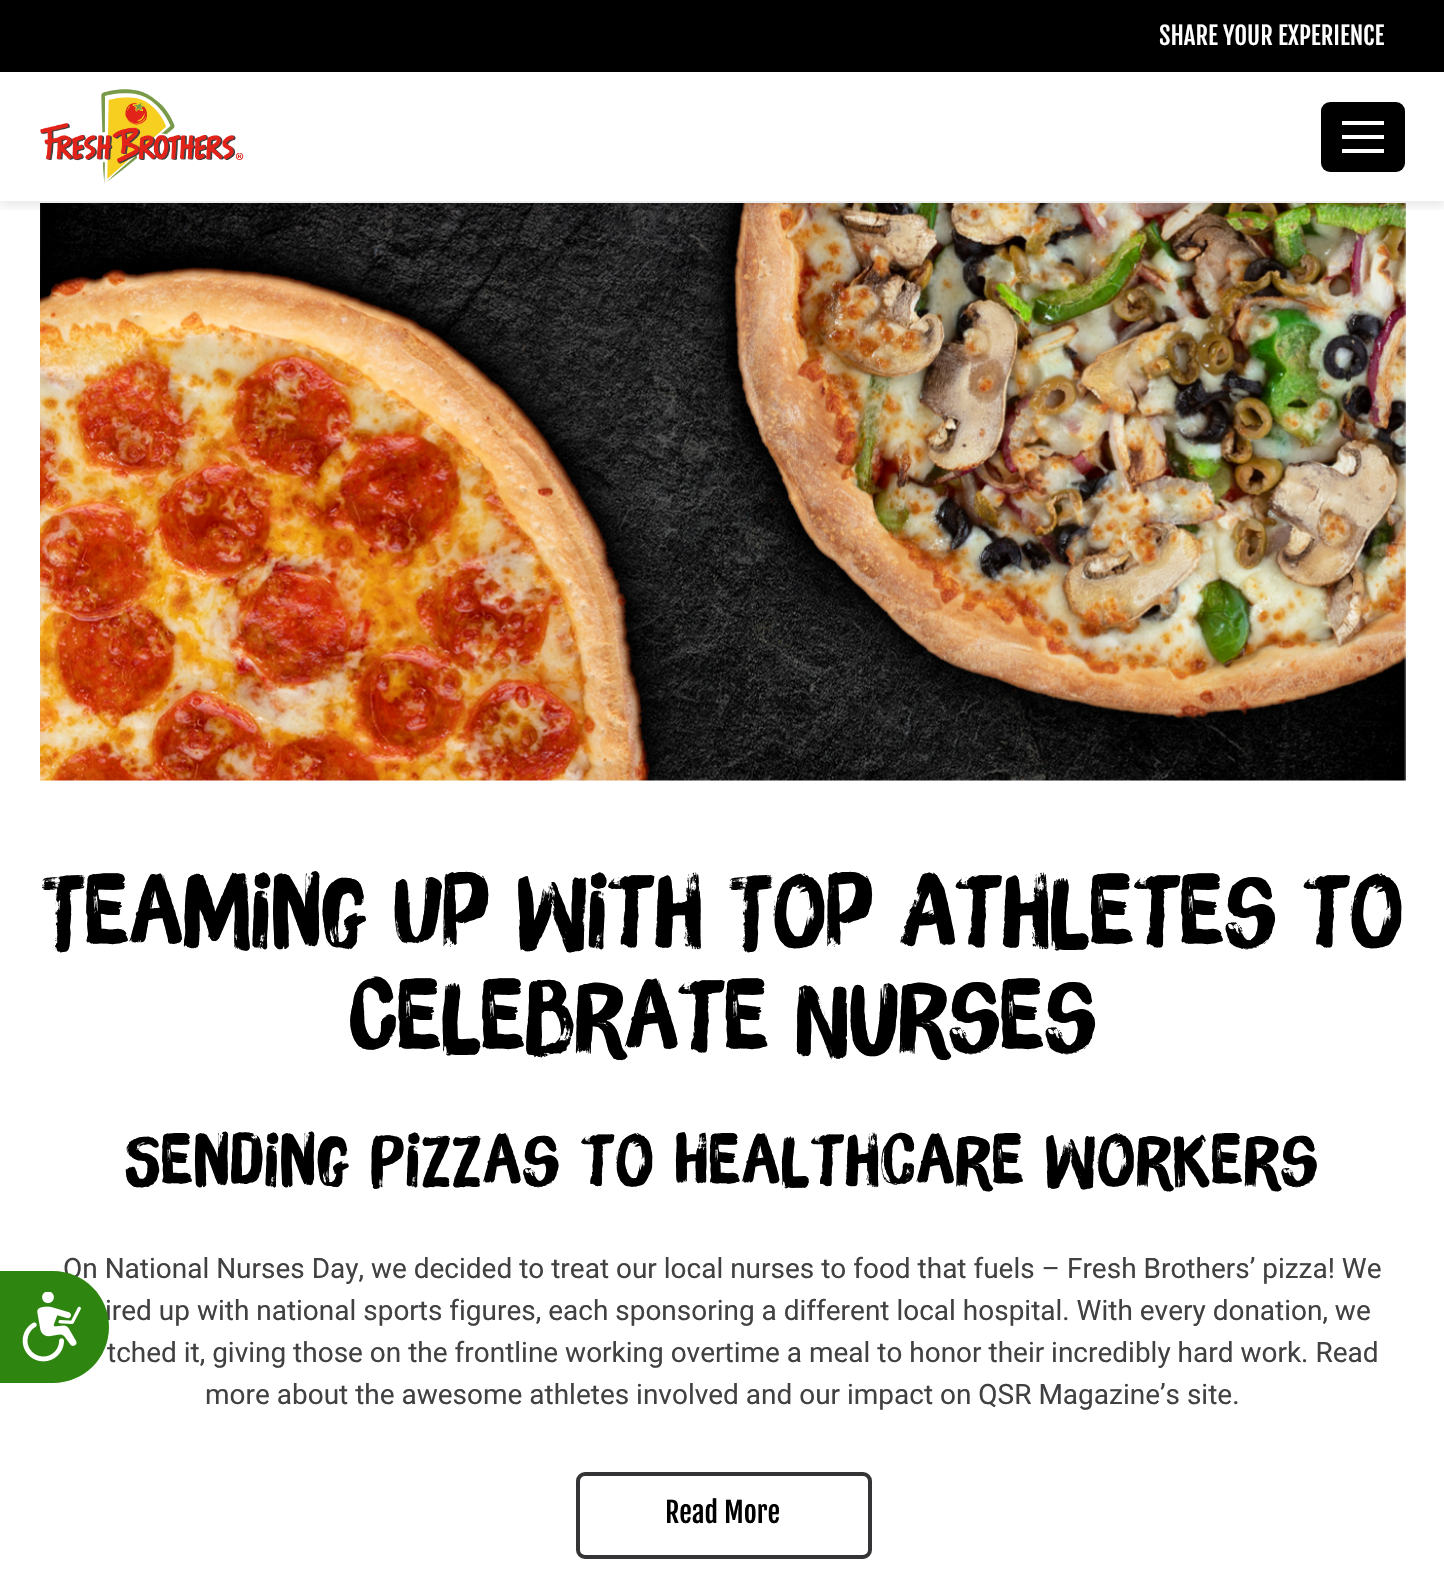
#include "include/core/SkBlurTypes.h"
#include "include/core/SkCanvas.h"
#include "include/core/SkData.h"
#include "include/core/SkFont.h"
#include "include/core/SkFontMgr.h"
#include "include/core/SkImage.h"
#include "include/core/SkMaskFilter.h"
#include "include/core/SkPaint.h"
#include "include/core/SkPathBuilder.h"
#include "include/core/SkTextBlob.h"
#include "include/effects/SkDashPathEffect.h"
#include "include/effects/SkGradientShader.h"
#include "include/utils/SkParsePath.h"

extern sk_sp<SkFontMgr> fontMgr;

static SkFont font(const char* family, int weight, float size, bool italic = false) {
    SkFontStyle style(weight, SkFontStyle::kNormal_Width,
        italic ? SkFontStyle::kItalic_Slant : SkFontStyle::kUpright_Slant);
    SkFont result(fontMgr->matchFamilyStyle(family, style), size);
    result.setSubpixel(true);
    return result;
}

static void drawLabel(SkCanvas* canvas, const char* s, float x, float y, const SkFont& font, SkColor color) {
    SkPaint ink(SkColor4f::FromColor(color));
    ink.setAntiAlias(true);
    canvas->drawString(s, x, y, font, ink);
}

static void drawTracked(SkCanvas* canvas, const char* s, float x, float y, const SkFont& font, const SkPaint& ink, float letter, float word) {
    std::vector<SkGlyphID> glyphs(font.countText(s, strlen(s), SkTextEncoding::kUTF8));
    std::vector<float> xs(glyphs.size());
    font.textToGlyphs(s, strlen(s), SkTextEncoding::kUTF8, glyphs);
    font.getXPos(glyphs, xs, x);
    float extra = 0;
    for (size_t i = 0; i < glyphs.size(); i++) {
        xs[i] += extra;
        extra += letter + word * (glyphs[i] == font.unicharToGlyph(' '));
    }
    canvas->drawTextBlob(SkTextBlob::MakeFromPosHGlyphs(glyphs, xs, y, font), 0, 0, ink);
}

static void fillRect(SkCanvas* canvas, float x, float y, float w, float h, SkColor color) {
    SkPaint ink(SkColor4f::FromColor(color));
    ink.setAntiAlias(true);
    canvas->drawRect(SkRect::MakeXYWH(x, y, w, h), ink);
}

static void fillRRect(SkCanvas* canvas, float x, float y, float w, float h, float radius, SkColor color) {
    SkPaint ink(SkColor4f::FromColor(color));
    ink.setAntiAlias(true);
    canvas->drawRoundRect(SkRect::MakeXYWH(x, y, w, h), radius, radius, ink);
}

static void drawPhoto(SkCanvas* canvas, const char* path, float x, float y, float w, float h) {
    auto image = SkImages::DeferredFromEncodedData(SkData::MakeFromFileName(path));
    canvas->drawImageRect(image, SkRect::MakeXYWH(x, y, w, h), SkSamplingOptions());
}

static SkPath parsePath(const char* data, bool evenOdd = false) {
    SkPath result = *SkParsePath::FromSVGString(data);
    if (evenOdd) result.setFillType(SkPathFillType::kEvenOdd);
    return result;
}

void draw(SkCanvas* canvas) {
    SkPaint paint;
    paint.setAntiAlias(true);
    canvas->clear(0xFFFFFFFF);
    drawPhoto(canvas, "assets/img2.png", 40, 203, 1366, 578);
    canvas->save();
    canvas->clipRect(SkRect::MakeXYWH(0, 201, 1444, 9));
    paint.setColor(0x14000000);
    paint.setMaskFilter(SkMaskFilter::MakeBlur(kNormal_SkBlurStyle, 5));
    canvas->drawRect(SkRect::MakeXYWH(0, 5, 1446, 202), paint);
    paint.setMaskFilter(nullptr);
    canvas->restore();
    fillRect(canvas, 0, 0, 1444, 72, 0xFF000000);
    SkFont font1 = font("Fjalla One", 400, 24.5f);
    drawLabel(canvas, "SHARE YOUR EXPERIENCE", 1159, 45, font1, 0xFFFFFFFF);
    drawPhoto(canvas, "assets/img1.png", 40, 89, 204, 95);
    fillRRect(canvas, 1321, 102, 84, 70, 9, 0xFF000000);
    fillRect(canvas, 1342, 121, 42, 4, 0xFFFFFFFF);
    fillRect(canvas, 1342, 135, 42, 4, 0xFFFFFFFF);
    fillRect(canvas, 1342, 149, 42, 4, 0xFFFFFFFF);
    SkFont font2 = font("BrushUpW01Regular", 400, 98);
    drawLabel(canvas, "Teaming Up With Top Athletes to", 42, 946, font2, 0xFF000000);
    drawLabel(canvas, "Celebrate Nurses", 349, 1051, font2, 0xFF000000);
    SkFont font3 = font("BrushUpW01Regular", 400, 70);
    paint.setColor(0xFF000000);
    drawTracked(canvas, "Sending Pizzas to Healthcare Workers", 125, 1185, font3, paint, 1.15f, 0);
    SkFont font4 = font("Roboto", 400, 28);
    drawLabel(canvas, "On National Nurses Day, we decided to treat our local nurses to food that fuels – Fresh Brothers’ pizza! We", 63, 1278, font4, 0xFF414042);
    drawLabel(canvas, "ired up with national sports figures, each sponsoring a different local hospital. With every donation, we", 105, 1320, font4, 0xFF414042);
    drawLabel(canvas, "tched it, giving those on the frontline working overtime a meal to honor their incredibly hard work. Read", 107, 1362, font4, 0xFF414042);
    drawLabel(canvas, "more about the awesome athletes involved and our impact on QSR Magazine’s site.", 205, 1404, font4, 0xFF414042);
    paint.setStroke(true);
    paint.setStrokeWidth(4);
    paint.setColor(0xFF343335);
    canvas->drawRoundRect(SkRect::MakeXYWH(578, 1474, 292, 83), 7, 7, paint);
    SkFont font5 = font("Fjalla One", 400, 28);
    drawLabel(canvas, "Read More", 665, 1523, font5, 0xFF000000);
    paint.setStroke(false);
    paint.setColor(0xFF2E850F);
    canvas->drawPath(parsePath("M0 1271H53C84 1271 109 1296 109 1327C109 1358 84 1383 53 1383H0Z"), paint);
    drawPhoto(canvas, "assets/img3.png", 22, 1292, 59, 70);
}
